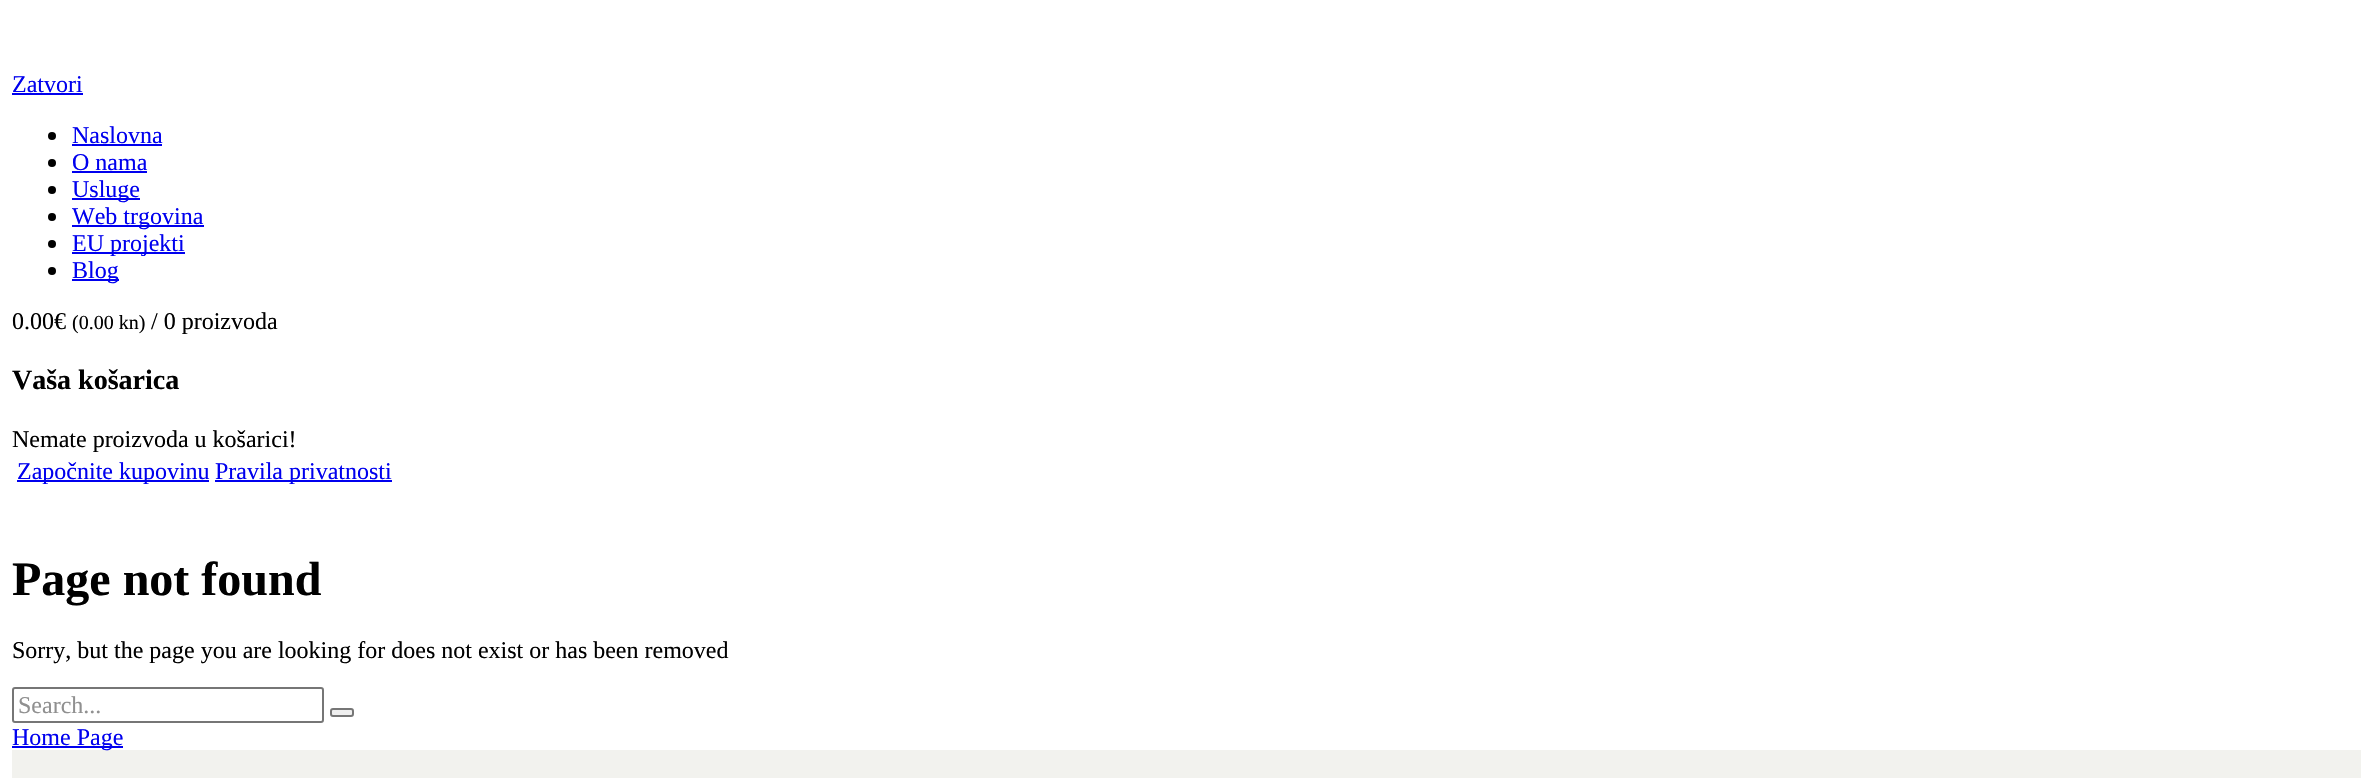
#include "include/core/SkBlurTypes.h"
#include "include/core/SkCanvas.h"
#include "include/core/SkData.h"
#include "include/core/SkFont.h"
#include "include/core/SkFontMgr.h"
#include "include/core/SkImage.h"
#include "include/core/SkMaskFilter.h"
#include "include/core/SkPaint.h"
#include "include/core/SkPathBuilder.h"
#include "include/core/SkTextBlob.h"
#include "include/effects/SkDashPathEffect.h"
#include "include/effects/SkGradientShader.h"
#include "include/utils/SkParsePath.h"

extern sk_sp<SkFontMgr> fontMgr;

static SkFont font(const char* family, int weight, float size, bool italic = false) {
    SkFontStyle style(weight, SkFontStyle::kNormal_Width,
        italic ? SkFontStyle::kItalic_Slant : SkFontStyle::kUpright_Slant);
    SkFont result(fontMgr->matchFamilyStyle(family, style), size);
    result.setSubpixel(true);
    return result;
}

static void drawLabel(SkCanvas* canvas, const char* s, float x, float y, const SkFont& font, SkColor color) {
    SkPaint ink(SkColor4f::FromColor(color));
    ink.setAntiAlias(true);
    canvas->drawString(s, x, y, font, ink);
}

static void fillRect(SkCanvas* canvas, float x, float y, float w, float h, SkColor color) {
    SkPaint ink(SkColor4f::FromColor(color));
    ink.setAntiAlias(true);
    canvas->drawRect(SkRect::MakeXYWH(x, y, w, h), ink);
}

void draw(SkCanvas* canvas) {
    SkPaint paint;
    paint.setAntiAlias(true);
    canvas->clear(0xFFFFFFFF);
    SkFont font1 = font("Liberation Serif", 400, 24);
    drawLabel(canvas, "Zatvori", 12, 92, font1, 0xFF0000EE);
    fillRect(canvas, 12, 93, 71, 2, 0xFF0000EE);
    paint.setColor(0xFF000000);
    canvas->drawCircle(52, 136, 4, paint);
    drawLabel(canvas, "Naslovna", 72, 143, font1, 0xFF0000EE);
    fillRect(canvas, 72, 144, 90, 2, 0xFF0000EE);
    canvas->drawCircle(52, 163, 4, paint);
    drawLabel(canvas, "O nama", 72, 170, font1, 0xFF0000EE);
    fillRect(canvas, 72, 171, 75, 2, 0xFF0000EE);
    canvas->drawCircle(52, 190, 4, paint);
    fillRect(canvas, 72, 198, 68, 2, 0xFF0000EE);
    drawLabel(canvas, "Usluge", 72, 197, font1, 0xFF0000EE);
    canvas->drawCircle(52, 217, 4, paint);
    fillRect(canvas, 72, 225, 132, 2, 0xFF0000EE);
    drawLabel(canvas, "Web trgovina", 72, 224, font1, 0xFF0000EE);
    canvas->drawCircle(52, 244, 4, paint);
    fillRect(canvas, 72, 252, 113, 2, 0xFF0000EE);
    drawLabel(canvas, "EU projekti", 72, 251, font1, 0xFF0000EE);
    canvas->drawCircle(52, 271, 4, paint);
    fillRect(canvas, 72, 279, 47, 2, 0xFF0000EE);
    drawLabel(canvas, "Blog", 72, 278, font1, 0xFF0000EE);
    drawLabel(canvas, "0.00€", 12, 329, font1, 0xFF000000);
    SkFont font2 = font("Liberation Serif", 400, 20);
    drawLabel(canvas, "(0.00 kn)", 72, 329, font2, 0xFF000000);
    drawLabel(canvas, "/ 0 proizvoda", 151, 329, font1, 0xFF000000);
    SkFont font3 = font("Liberation Serif", 700, 28);
    drawLabel(canvas, "Vaša košarica", 12, 389, font3, 0xFF000000);
    drawLabel(canvas, "Nemate proizvoda u košarici!", 12, 447, font1, 0xFF000000);
    fillRect(canvas, 17, 480, 192, 2, 0xFF0000EE);
    drawLabel(canvas, "Započnite kupovinu", 17, 479, font1, 0xFF0000EE);
    fillRect(canvas, 215, 480, 177, 2, 0xFF0000EE);
    drawLabel(canvas, "Pravila privatnosti", 215, 479, font1, 0xFF0000EE);
    SkFont font4 = font("Liberation Serif", 700, 48);
    drawLabel(canvas, "Page not found", 12, 595, font4, 0xFF000000);
    drawLabel(canvas, "Sorry, but the page you are looking for does not exist or has been removed", 12, 658, font1, 0xFF000000);
    paint.setStroke(true);
    paint.setStrokeWidth(2);
    paint.setColor(0xFF767676);
    canvas->drawRoundRect(SkRect::MakeXYWH(13, 688, 310, 34), 2, 2, paint);
    drawLabel(canvas, "Search...", 18, 713, font1, 0xFF909090);
    paint.setStroke(false);
    paint.setColor(0xFFEFEFEF);
    canvas->drawRoundRect(SkRect::MakeXYWH(331, 709, 22, 7), 2, 2, paint);
    paint.setStroke(true);
    paint.setColor(0xFF767676);
    canvas->drawRoundRect(SkRect::MakeXYWH(331, 709, 22, 7), 2, 2, paint);
    fillRect(canvas, 12, 746, 111, 2, 0xFF0000EE);
    fillRect(canvas, 12, 750, 2349, 28, 0xFFF2F2EE);
    drawLabel(canvas, "Home Page", 12, 745, font1, 0xFF0000EE);
}
